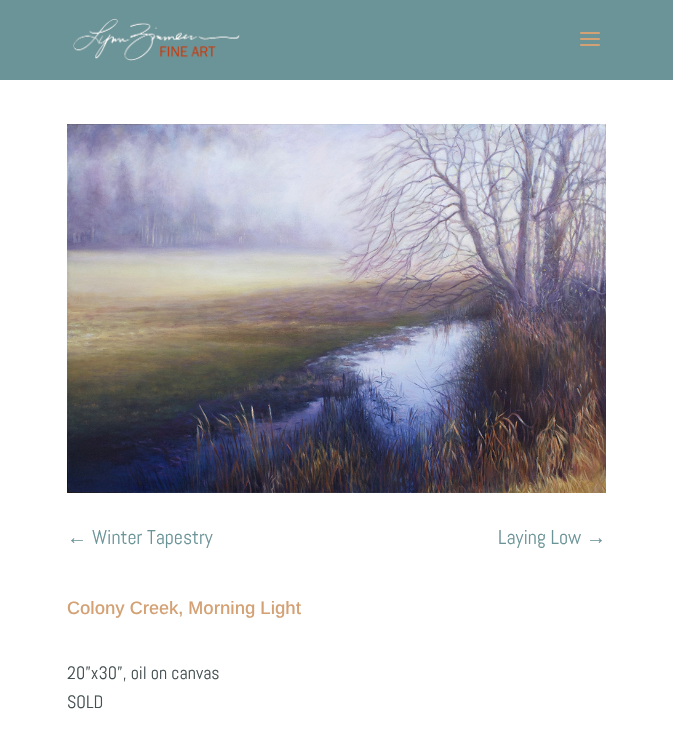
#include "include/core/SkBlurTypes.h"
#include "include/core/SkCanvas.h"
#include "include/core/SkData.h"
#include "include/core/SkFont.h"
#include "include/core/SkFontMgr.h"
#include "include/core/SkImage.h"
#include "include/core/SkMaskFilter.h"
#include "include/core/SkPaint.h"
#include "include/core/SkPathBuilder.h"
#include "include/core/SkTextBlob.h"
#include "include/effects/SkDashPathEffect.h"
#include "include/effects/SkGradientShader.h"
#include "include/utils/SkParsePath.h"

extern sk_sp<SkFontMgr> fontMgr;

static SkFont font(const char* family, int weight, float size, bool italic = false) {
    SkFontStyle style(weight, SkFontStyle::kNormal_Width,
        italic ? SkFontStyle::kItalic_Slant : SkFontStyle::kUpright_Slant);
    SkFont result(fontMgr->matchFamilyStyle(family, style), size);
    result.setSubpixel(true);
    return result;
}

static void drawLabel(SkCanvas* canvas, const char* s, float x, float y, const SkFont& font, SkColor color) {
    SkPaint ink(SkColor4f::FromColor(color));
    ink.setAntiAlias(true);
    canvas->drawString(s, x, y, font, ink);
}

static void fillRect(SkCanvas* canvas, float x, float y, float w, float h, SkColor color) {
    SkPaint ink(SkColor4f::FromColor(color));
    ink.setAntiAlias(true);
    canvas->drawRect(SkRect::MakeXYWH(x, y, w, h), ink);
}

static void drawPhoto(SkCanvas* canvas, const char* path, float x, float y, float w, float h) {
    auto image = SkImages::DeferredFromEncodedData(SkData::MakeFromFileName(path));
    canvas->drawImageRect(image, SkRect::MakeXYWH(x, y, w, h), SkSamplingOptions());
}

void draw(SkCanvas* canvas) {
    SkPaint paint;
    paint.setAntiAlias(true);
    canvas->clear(0xFFFFFFFF);
    fillRect(canvas, 0, 0, 673, 80, 0xFF6B9498);
    drawPhoto(canvas, "assets/img1.png", 73, 18, 167, 43);
    drawPhoto(canvas, "assets/img2.png", 580, 32, 20, 14);
    drawPhoto(canvas, "assets/img3.png", 67, 124, 539, 369);
    SkFont font1 = font("Liberation Sans", 400, 20);
    drawLabel(canvas, "←", 67, 544, font1, 0xFF6B9498);
    SkFont font2 = font("Abel", 400, 20);
    drawLabel(canvas, "Winter Tapestry", 92, 544, font2, 0xFF6B9498);
    drawLabel(canvas, "Laying Low", 498, 544, font2, 0xFF6B9498);
    drawLabel(canvas, "→", 586, 544, font1, 0xFF6B9498);
    SkFont font3 = font("Arimo", 500, 18);
    drawLabel(canvas, "Colony Creek, Morning Light", 67, 614, font3, 0xFFD3A174);
    SkFont font4 = font("Abel", 400, 18);
    drawLabel(canvas, "20”x30”, oil on canvas", 67, 679, font4, 0xFF455052);
    drawLabel(canvas, "SOLD", 67, 708, font4, 0xFF455052);
}
